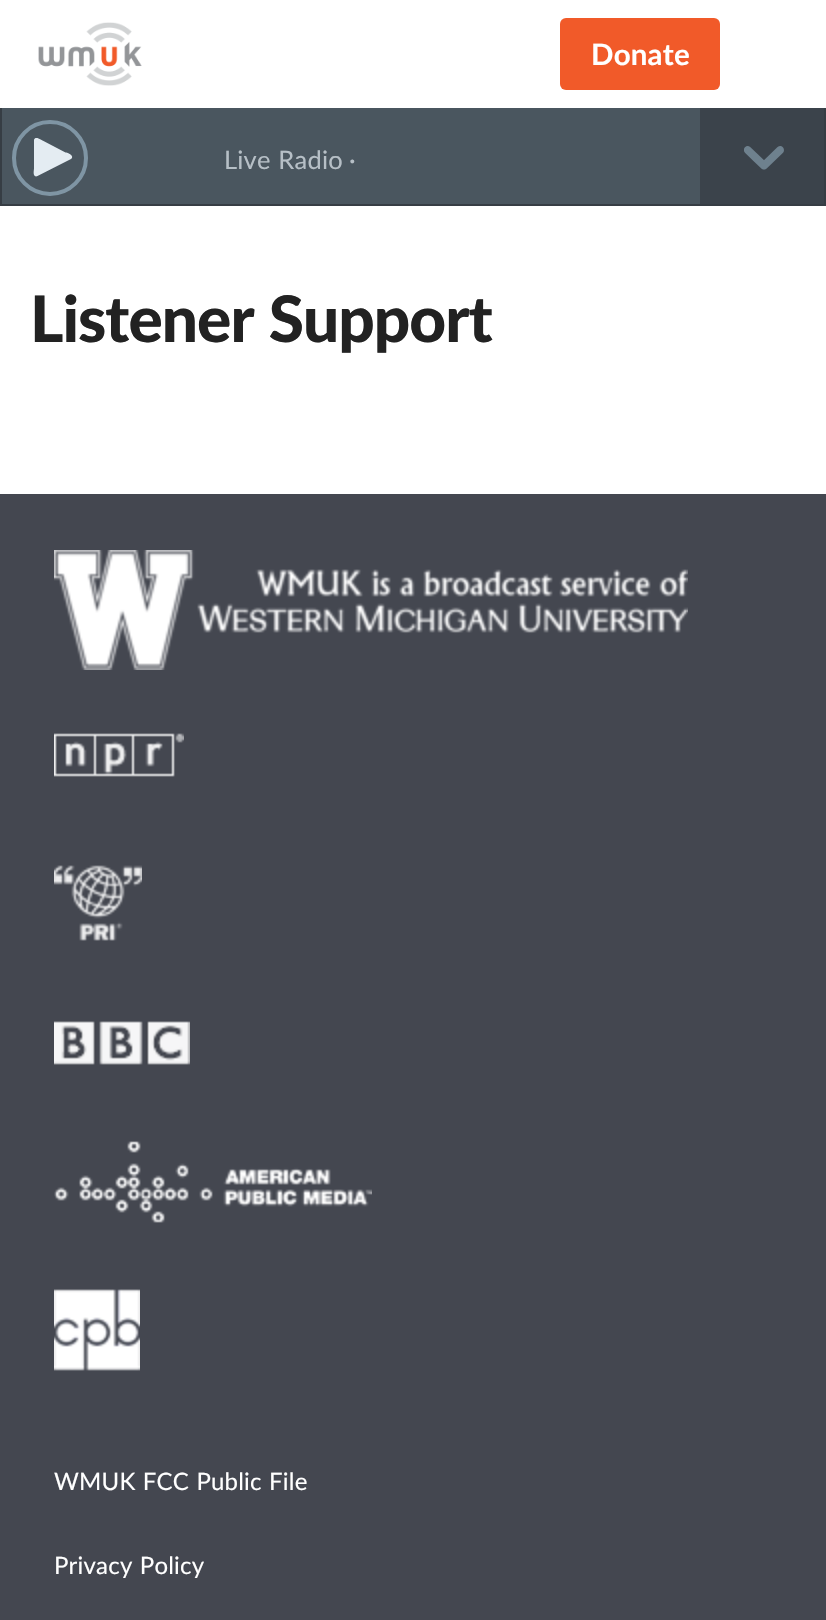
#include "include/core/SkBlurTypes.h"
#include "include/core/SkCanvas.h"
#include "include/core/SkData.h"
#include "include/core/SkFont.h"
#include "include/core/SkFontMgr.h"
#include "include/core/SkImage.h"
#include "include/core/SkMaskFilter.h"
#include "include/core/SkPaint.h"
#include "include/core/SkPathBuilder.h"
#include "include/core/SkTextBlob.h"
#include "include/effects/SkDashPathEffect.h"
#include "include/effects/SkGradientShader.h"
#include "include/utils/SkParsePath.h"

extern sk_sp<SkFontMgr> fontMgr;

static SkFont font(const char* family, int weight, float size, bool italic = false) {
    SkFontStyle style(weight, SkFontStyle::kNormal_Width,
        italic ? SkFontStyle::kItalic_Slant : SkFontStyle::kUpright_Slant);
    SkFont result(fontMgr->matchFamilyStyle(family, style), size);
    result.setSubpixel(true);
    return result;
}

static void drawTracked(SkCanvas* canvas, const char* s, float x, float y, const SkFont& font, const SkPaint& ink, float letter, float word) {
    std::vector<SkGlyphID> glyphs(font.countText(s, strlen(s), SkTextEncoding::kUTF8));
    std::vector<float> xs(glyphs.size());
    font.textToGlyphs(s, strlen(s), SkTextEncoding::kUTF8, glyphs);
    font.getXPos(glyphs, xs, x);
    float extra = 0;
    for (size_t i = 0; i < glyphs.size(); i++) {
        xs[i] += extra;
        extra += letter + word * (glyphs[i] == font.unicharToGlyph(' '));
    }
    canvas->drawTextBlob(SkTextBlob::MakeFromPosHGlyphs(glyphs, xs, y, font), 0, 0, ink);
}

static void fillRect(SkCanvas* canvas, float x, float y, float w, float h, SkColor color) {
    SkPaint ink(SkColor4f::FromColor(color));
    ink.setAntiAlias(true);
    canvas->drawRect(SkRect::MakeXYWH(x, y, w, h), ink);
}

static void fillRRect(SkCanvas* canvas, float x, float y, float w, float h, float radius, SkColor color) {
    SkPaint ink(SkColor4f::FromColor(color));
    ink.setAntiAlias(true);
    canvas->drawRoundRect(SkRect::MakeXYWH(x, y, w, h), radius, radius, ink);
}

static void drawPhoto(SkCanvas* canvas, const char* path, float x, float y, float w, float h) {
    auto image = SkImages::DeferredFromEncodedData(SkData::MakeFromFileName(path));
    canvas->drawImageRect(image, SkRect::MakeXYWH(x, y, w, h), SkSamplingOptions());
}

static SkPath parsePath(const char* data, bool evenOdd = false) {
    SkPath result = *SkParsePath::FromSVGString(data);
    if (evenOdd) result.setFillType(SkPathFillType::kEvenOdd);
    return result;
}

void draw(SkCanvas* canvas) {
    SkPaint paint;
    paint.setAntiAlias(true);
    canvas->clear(0xFFFFFFFF);
    drawPhoto(canvas, "assets/img1.png", 38, 22, 104, 64);
    fillRRect(canvas, 560, 18, 160, 72, 6, 0xFFF15A29);
    SkFont font1 = font("Lato", 700, 29.5f);
    paint.setColor(0xFFFFFFFF);
    drawTracked(canvas, "Donate", 591, 65, font1, paint, 0.2f, 0);
    fillRect(canvas, 2, 108, 698, 96, 0xFF4A565F);
    fillRect(canvas, 0, 204, 826, 2, 0xFF363D44);
    fillRect(canvas, 824, 108, 2, 96, 0xFF363D44);
    fillRect(canvas, 0, 108, 2, 96, 0xFF363D44);
    paint.setStroke(true);
    paint.setStrokeWidth(4);
    paint.setColor(0xFF7F95A4);
    canvas->drawCircle(50, 158, 36, paint);
    paint.setStroke(false);
    paint.setColor(0xFFE4ECF2);
    canvas->drawPath(parsePath("M71 159L37.5 176L36 176.5C32.5 176 34 170 34 168.5V140C35 135 42.5 140.5 43.5 141L65.5 152.5C66.5 152.5 73.5 154.5 72 158Z"), paint);
    SkFont font2 = font("Lato", 400, 25.5f);
    paint.setColor(0xFFB6BFC6);
    drawTracked(canvas, "Live Radio", 224, 169, font2, paint, 0.2f, 1);
    drawTracked(canvas, "·", 349, 169, font2, paint, 0.2f, 0);
    fillRect(canvas, 700, 108, 124, 96, 0xFF3B434B);
    drawPhoto(canvas, "assets/img2.png", 744, 146, 40, 24);
    SkFont font3 = font("Lato", 900, 64);
    paint.setColor(0xFF222222);
    drawTracked(canvas, "Listener Support", 30, 342, font3, paint, -1, 1);
    fillRect(canvas, 0, 494, 826, 1126, 0xFF444750);
    drawPhoto(canvas, "assets/img3.png", 54, 550, 634, 120);
    drawPhoto(canvas, "assets/img4.png", 54, 733, 130, 44);
    drawPhoto(canvas, "assets/img5.png", 54, 865, 88, 76);
    drawPhoto(canvas, "assets/img6.png", 54, 1021, 136, 44);
    drawPhoto(canvas, "assets/img7.png", 54, 1141, 318, 82);
    drawPhoto(canvas, "assets/img8.png", 54, 1289, 86, 82);
    SkFont font4 = font("Lato", 400, 24);
    paint.setColor(0xFFFFFFFF);
    drawTracked(canvas, "WMUK FCC Public File", 54, 1490, font4, paint, 0.2f, 1);
    drawTracked(canvas, "Privacy Policy", 54, 1574, font4, paint, 0.2f, 1);
}
